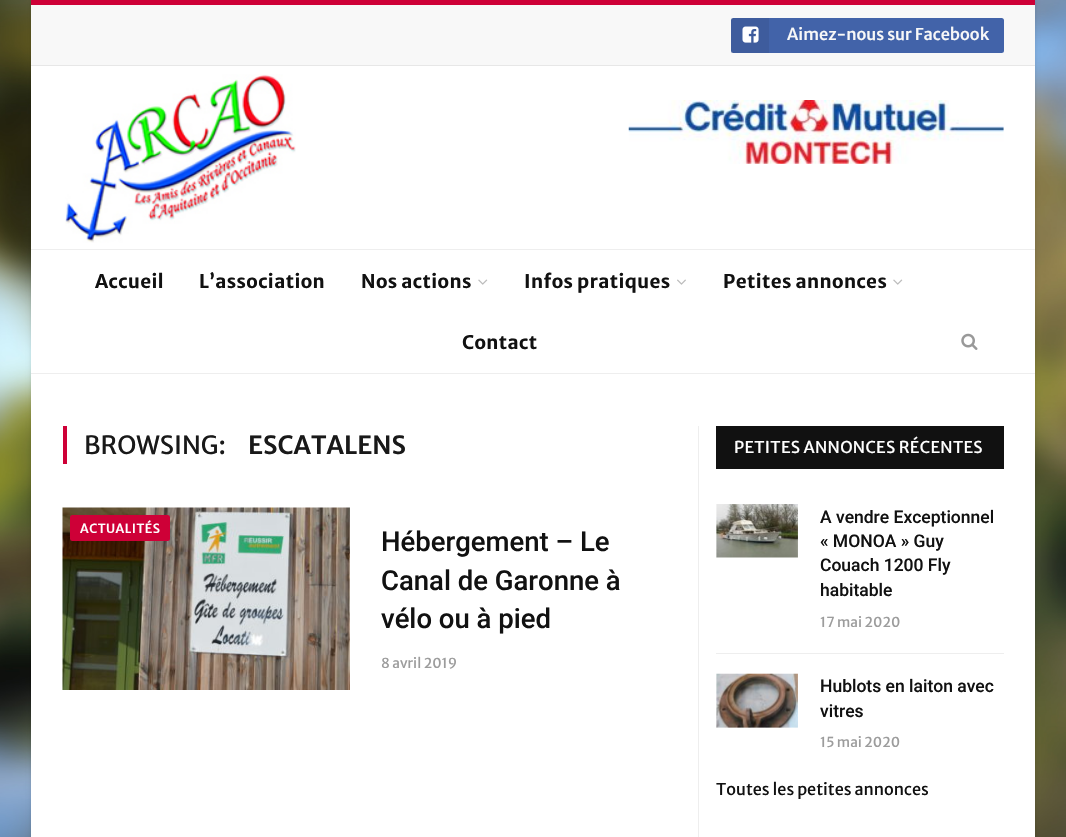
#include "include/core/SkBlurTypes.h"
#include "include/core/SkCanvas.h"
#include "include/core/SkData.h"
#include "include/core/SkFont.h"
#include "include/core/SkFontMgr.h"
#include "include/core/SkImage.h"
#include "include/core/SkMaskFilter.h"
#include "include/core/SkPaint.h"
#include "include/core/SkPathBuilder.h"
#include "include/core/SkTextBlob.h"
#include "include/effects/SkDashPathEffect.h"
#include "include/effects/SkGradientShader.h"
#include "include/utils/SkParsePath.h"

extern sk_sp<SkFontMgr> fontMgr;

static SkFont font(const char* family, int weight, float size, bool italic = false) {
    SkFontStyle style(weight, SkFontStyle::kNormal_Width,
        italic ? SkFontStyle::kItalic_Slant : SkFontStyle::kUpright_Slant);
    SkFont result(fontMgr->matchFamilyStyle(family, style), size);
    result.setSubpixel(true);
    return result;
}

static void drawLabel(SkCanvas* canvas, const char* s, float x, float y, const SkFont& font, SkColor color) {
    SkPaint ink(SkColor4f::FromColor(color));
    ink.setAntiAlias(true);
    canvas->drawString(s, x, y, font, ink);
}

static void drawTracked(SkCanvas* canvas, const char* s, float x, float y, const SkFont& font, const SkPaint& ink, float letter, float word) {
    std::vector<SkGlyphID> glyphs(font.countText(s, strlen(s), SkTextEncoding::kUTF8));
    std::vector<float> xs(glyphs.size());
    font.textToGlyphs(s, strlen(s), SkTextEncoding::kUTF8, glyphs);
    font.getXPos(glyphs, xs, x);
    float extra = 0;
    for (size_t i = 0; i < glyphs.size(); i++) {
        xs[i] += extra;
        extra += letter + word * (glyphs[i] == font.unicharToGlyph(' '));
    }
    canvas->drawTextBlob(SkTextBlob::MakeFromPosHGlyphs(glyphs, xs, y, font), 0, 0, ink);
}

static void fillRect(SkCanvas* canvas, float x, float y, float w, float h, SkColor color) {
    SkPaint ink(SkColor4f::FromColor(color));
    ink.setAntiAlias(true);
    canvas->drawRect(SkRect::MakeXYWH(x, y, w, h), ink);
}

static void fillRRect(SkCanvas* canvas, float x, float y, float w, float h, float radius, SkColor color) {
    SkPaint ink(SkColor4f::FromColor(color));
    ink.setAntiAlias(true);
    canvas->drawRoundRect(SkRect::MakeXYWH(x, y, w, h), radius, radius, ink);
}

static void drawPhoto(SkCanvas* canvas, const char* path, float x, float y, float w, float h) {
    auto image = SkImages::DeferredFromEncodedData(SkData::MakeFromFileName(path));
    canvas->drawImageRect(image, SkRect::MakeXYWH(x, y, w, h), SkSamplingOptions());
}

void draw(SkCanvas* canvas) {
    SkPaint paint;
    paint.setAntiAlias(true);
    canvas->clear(0xFFFFFFFF);
    drawPhoto(canvas, "assets/img1.png", 0, 0, 1066, 837);
    paint.setColor(0x1F000000);
    paint.setMaskFilter(SkMaskFilter::MakeBlur(kNormal_SkBlurStyle, 2));
    canvas->drawRect(SkRect::MakeXYWH(31, 0, 1004, 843), paint);
    paint.setMaskFilter(nullptr);
    fillRect(canvas, 31, 66, 1004, 771, 0xFFFFFFFF);
    fillRect(canvas, 31, 5, 1004, 60, 0xFFF8F8F8);
    fillRect(canvas, 31, 0, 1004, 5, 0xFFCE0037);
    fillRect(canvas, 31, 65, 1004, 1, 0xFFE7E7E7);
    fillRRect(canvas, 731, 18, 273, 35, 2.5f, 0xFF4263A9);
    fillRect(canvas, 731, 18, 38, 35, 0x12000000);
    drawPhoto(canvas, "assets/img2.png", 742, 26, 17, 17);
    SkFont font1 = font("Merriweather Sans", 500, 16.25f);
    drawLabel(canvas, "Aimez-nous sur Facebook", 787, 40, font1, 0xFFF8F8F8);
    drawPhoto(canvas, "assets/img3.png", 65, 74, 231, 169);
    drawPhoto(canvas, "assets/img4.png", 628, 100, 376, 64);
    fillRect(canvas, 31, 249, 1004, 1, 0xFFEEEEEE);
    fillRect(canvas, 31, 373, 1004, 1, 0xFFEEEEEE);
    SkFont font2 = font("Merriweather Sans", 700, 18.75f);
    paint.setColor(0xFF111111);
    drawTracked(canvas, "Accueil", 95, 288, font2, paint, 0.4f, 0);
    drawTracked(canvas, "L’association", 199, 288, font2, paint, 0.4f, 0);
    drawTracked(canvas, "Nos actions", 361, 288, font2, paint, 0.4f, 0);
    drawPhoto(canvas, "assets/img5.png", 478, 279, 10, 6);
    drawTracked(canvas, "Infos pratiques", 524, 288, font2, paint, 0.4f, 0);
    drawPhoto(canvas, "assets/img6.png", 677, 279, 9, 6);
    drawTracked(canvas, "Petites annonces", 723, 288, font2, paint, 0.4f, 0);
    drawPhoto(canvas, "assets/img5.png", 893, 279, 10, 6);
    drawTracked(canvas, "Contact", 462, 349, font2, paint, 0.4f, 0);
    drawPhoto(canvas, "assets/img7.png", 961, 333, 17, 17);
    fillRect(canvas, 63, 426, 4, 38, 0xFFCE0037);
    SkFont font3 = font("Merriweather Sans", 400, 25);
    drawLabel(canvas, "BROWSING:", 84, 454, font3, 0xFF191919);
    SkFont font4 = font("Merriweather Sans", 600, 25);
    drawLabel(canvas, "ESCATALENS", 248, 454, font4, 0xFF191919);
    drawPhoto(canvas, "assets/img8.png", 62, 507, 288, 183);
    fillRRect(canvas, 70, 515, 100, 26, 2.5f, 0xFFCE0037);
    SkFont font5 = font("Merriweather Sans", 500, 12.5f);
    paint.setColor(0xFFFFFFFF);
    drawTracked(canvas, "ACTUALITÉS", 80, 533, font5, paint, 0.5f, 0);
    SkFont font6 = font("Roboto", 500, 27.5f);
    drawLabel(canvas, "Hébergement – Le", 381, 551, font6, 0xFF111111);
    drawLabel(canvas, "Canal de Garonne à", 381, 590, font6, 0xFF111111);
    drawLabel(canvas, "vélo ou à pied", 381, 628, font6, 0xFF111111);
    SkFont font7 = font("Merriweather Sans", 400, 13.75f);
    drawLabel(canvas, "8 avril 2019", 381, 668, font7, 0xFF9C9C9C);
    fillRect(canvas, 698, 426, 1, 411, 0xFFEEEEEE);
    fillRect(canvas, 716, 426, 288, 43, 0xFF111111);
    SkFont font8 = font("Merriweather Sans", 400, 16.25f);
    drawTracked(canvas, "PETITES ANNONCES RÉCENTES", 734, 453, font8, paint, 0.3f, 0);
    fillRect(canvas, 716, 653, 288, 1, 0xFFEEEEEE);
    drawPhoto(canvas, "assets/img9.png", 716, 504, 82, 54);
    SkFont font9 = font("Roboto", 500, 17.5f);
    drawLabel(canvas, "A vendre Exceptionnel", 820, 523, font9, 0xFF111111);
    drawLabel(canvas, "« MONOA » Guy", 820, 547, font9, 0xFF111111);
    drawLabel(canvas, "Couach 1200 Fly", 820, 571, font9, 0xFF111111);
    drawLabel(canvas, "habitable", 820, 596, font9, 0xFF111111);
    drawLabel(canvas, "17 mai 2020", 820, 627, font7, 0xFF9C9C9C);
    drawPhoto(canvas, "assets/img10.png", 716, 673, 82, 55);
    drawLabel(canvas, "Hublots en laiton avec", 820, 692, font9, 0xFF111111);
    drawLabel(canvas, "vitres", 820, 717, font9, 0xFF111111);
    drawLabel(canvas, "15 mai 2020", 820, 747, font7, 0xFF9C9C9C);
    drawLabel(canvas, "Toutes les petites annonces", 716, 795, font8, 0xFF111111);
}
